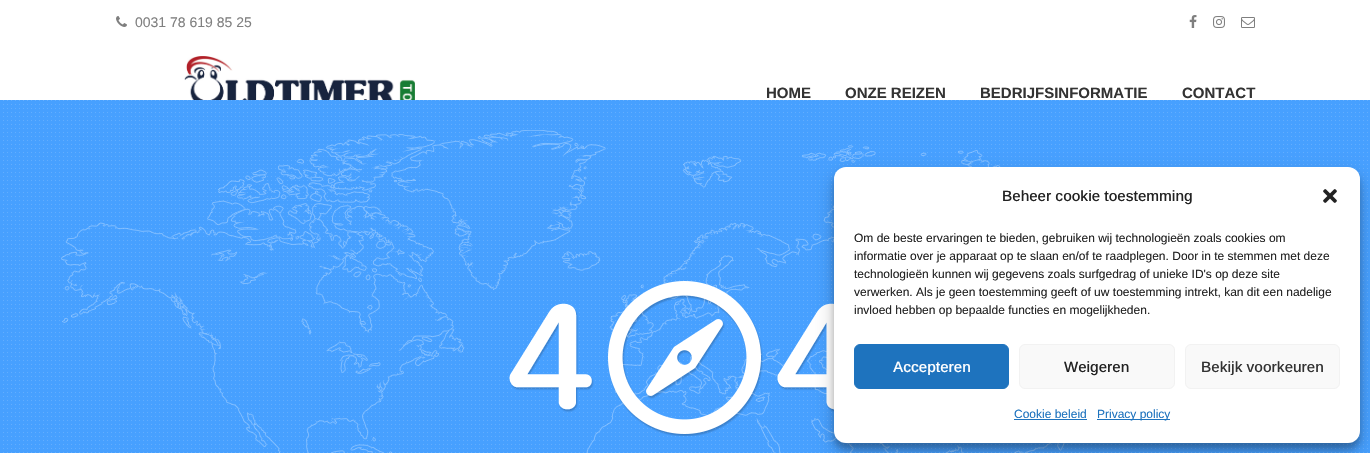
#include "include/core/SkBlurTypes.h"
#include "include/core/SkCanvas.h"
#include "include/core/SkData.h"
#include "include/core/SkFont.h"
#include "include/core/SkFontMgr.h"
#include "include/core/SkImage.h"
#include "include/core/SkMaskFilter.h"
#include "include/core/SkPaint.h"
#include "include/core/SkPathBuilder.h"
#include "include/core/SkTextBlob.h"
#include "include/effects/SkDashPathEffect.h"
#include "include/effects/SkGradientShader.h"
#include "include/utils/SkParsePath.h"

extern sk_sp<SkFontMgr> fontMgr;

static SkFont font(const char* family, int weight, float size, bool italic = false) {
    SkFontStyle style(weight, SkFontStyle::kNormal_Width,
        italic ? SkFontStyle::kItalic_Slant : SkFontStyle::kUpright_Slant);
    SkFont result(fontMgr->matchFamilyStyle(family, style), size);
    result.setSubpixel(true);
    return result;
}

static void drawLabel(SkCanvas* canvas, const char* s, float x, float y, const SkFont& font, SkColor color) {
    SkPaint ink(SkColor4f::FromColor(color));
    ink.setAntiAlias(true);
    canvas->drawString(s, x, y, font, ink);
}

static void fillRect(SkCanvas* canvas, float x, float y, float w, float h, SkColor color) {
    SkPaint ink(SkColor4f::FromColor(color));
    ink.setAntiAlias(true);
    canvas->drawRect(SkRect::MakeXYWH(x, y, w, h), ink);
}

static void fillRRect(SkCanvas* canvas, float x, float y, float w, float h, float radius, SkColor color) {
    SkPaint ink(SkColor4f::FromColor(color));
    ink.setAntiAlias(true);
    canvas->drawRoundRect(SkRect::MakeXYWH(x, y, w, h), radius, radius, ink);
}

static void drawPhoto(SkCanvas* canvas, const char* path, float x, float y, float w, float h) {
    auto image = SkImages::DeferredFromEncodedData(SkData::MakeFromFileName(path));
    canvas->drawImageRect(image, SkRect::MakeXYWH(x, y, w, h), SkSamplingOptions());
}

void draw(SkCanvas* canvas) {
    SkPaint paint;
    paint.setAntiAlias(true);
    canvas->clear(0xFFFFFFFF);
    drawPhoto(canvas, "assets/img1.png", 116, 16, 11, 11);
    SkFont font1 = font("Arimo", 400, 14);
    drawLabel(canvas, "0031 78 619 85 25", 135, 27, font1, 0xFF808080);
    drawPhoto(canvas, "assets/img2.png", 1189, 15, 8, 13);
    drawPhoto(canvas, "assets/img3.png", 1213, 16, 12, 12);
    drawPhoto(canvas, "assets/img4.png", 1241, 17, 14, 11);
    drawPhoto(canvas, "assets/img5.png", 184, 56, 231, 44);
    SkFont font2 = font("Arimo", 700, 15);
    drawLabel(canvas, "HOME", 766, 98, font2, 0xFF333333);
    drawLabel(canvas, "ONZE REIZEN", 845, 98, font2, 0xFF333333);
    drawLabel(canvas, "BEDRIJFSINFORMATIE", 980, 98, font2, 0xFF333333);
    drawLabel(canvas, "CONTACT", 1182, 98, font2, 0xFF333333);
    fillRect(canvas, 0, 100, 1370, 353, 0xFF47A0FF);
    drawPhoto(canvas, "assets/img6.png", 3, 100, 1365, 353);
    drawPhoto(canvas, "assets/img8.png", 509, 281, 325, 155);
    drawPhoto(canvas, "assets/img7.png", 61, 130, 1004, 323);
    paint.setColor(0x3B000000);
    paint.setMaskFilter(SkMaskFilter::MakeBlur(kNormal_SkBlurStyle, 3));
    canvas->drawRoundRect(SkRect::MakeXYWH(834, 173, 526, 276), 12, 12, paint);
    paint.setMaskFilter(nullptr);
    paint.setColor(0x30000000);
    paint.setMaskFilter(SkMaskFilter::MakeBlur(kNormal_SkBlurStyle, 10));
    canvas->drawRoundRect(SkRect::MakeXYWH(834, 177, 526, 276), 12, 12, paint);
    paint.setMaskFilter(nullptr);
    fillRRect(canvas, 834, 167, 526, 276, 12, 0xFFFFFFFF);
    SkFont font3 = font("Arimo", 500, 15);
    drawLabel(canvas, "Beheer cookie toestemming", 1002, 201, font3, 0xFF222222);
    drawPhoto(canvas, "assets/img9.png", 1323, 189, 14, 14);
    SkFont font4 = font("Arimo", 400, 12);
    drawLabel(canvas, "Om de beste ervaringen te bieden, gebruiken wij technologieën zoals cookies om", 854, 242, font4, 0xFF222222);
    drawLabel(canvas, "informatie over je apparaat op te slaan en/of te raadplegen. Door in te stemmen met deze", 854, 260, font4, 0xFF222222);
    drawLabel(canvas, "technologieën kunnen wij gegevens zoals surfgedrag of unieke ID's op deze site", 854, 278, font4, 0xFF222222);
    drawLabel(canvas, "verwerken. Als je geen toestemming geeft of uw toestemming intrekt, kan dit een nadelige", 854, 296, font4, 0xFF222222);
    drawLabel(canvas, "invloed hebben op bepaalde functies en mogelijkheden.", 854, 314, font4, 0xFF222222);
    paint.setColor(0xFF1E73BE);
    canvas->drawRoundRect(SkRect::MakeXYWH(854.5f, 344.5f, 154, 44), 5.5f, 5.5f, paint);
    paint.setStroke(true);
    paint.setStrokeWidth(1);
    canvas->drawRoundRect(SkRect::MakeXYWH(854.5f, 344.5f, 154, 44), 5.5f, 5.5f, paint);
    drawLabel(canvas, "Accepteren", 893, 372, font3, 0xFFFFFFFF);
    paint.setStroke(false);
    paint.setColor(0xFFF9F9F9);
    canvas->drawRoundRect(SkRect::MakeXYWH(1019.5f, 344.5f, 155, 44), 5.5f, 5.5f, paint);
    paint.setStroke(true);
    paint.setColor(0xFFF2F2F2);
    canvas->drawRoundRect(SkRect::MakeXYWH(1019.5f, 344.5f, 155, 44), 5.5f, 5.5f, paint);
    drawLabel(canvas, "Weigeren", 1064, 372, font3, 0xFF222222);
    paint.setStroke(false);
    paint.setColor(0xFFF9F9F9);
    canvas->drawRoundRect(SkRect::MakeXYWH(1185.5f, 344.5f, 154, 44), 5.5f, 5.5f, paint);
    paint.setStroke(true);
    paint.setColor(0xFFF2F2F2);
    canvas->drawRoundRect(SkRect::MakeXYWH(1185.5f, 344.5f, 154, 44), 5.5f, 5.5f, paint);
    drawLabel(canvas, "Bekijk voorkeuren", 1201, 372, font3, 0xFF333333);
    drawLabel(canvas, "Cookie beleid", 1014, 418, font4, 0xFF1E73BE);
    fillRect(canvas, 1014, 419, 73, 1, 0xFF1E73BE);
    fillRect(canvas, 1097, 419, 73, 1, 0xFF1E73BE);
    drawLabel(canvas, "Privacy policy", 1097, 418, font4, 0xFF1E73BE);
}
